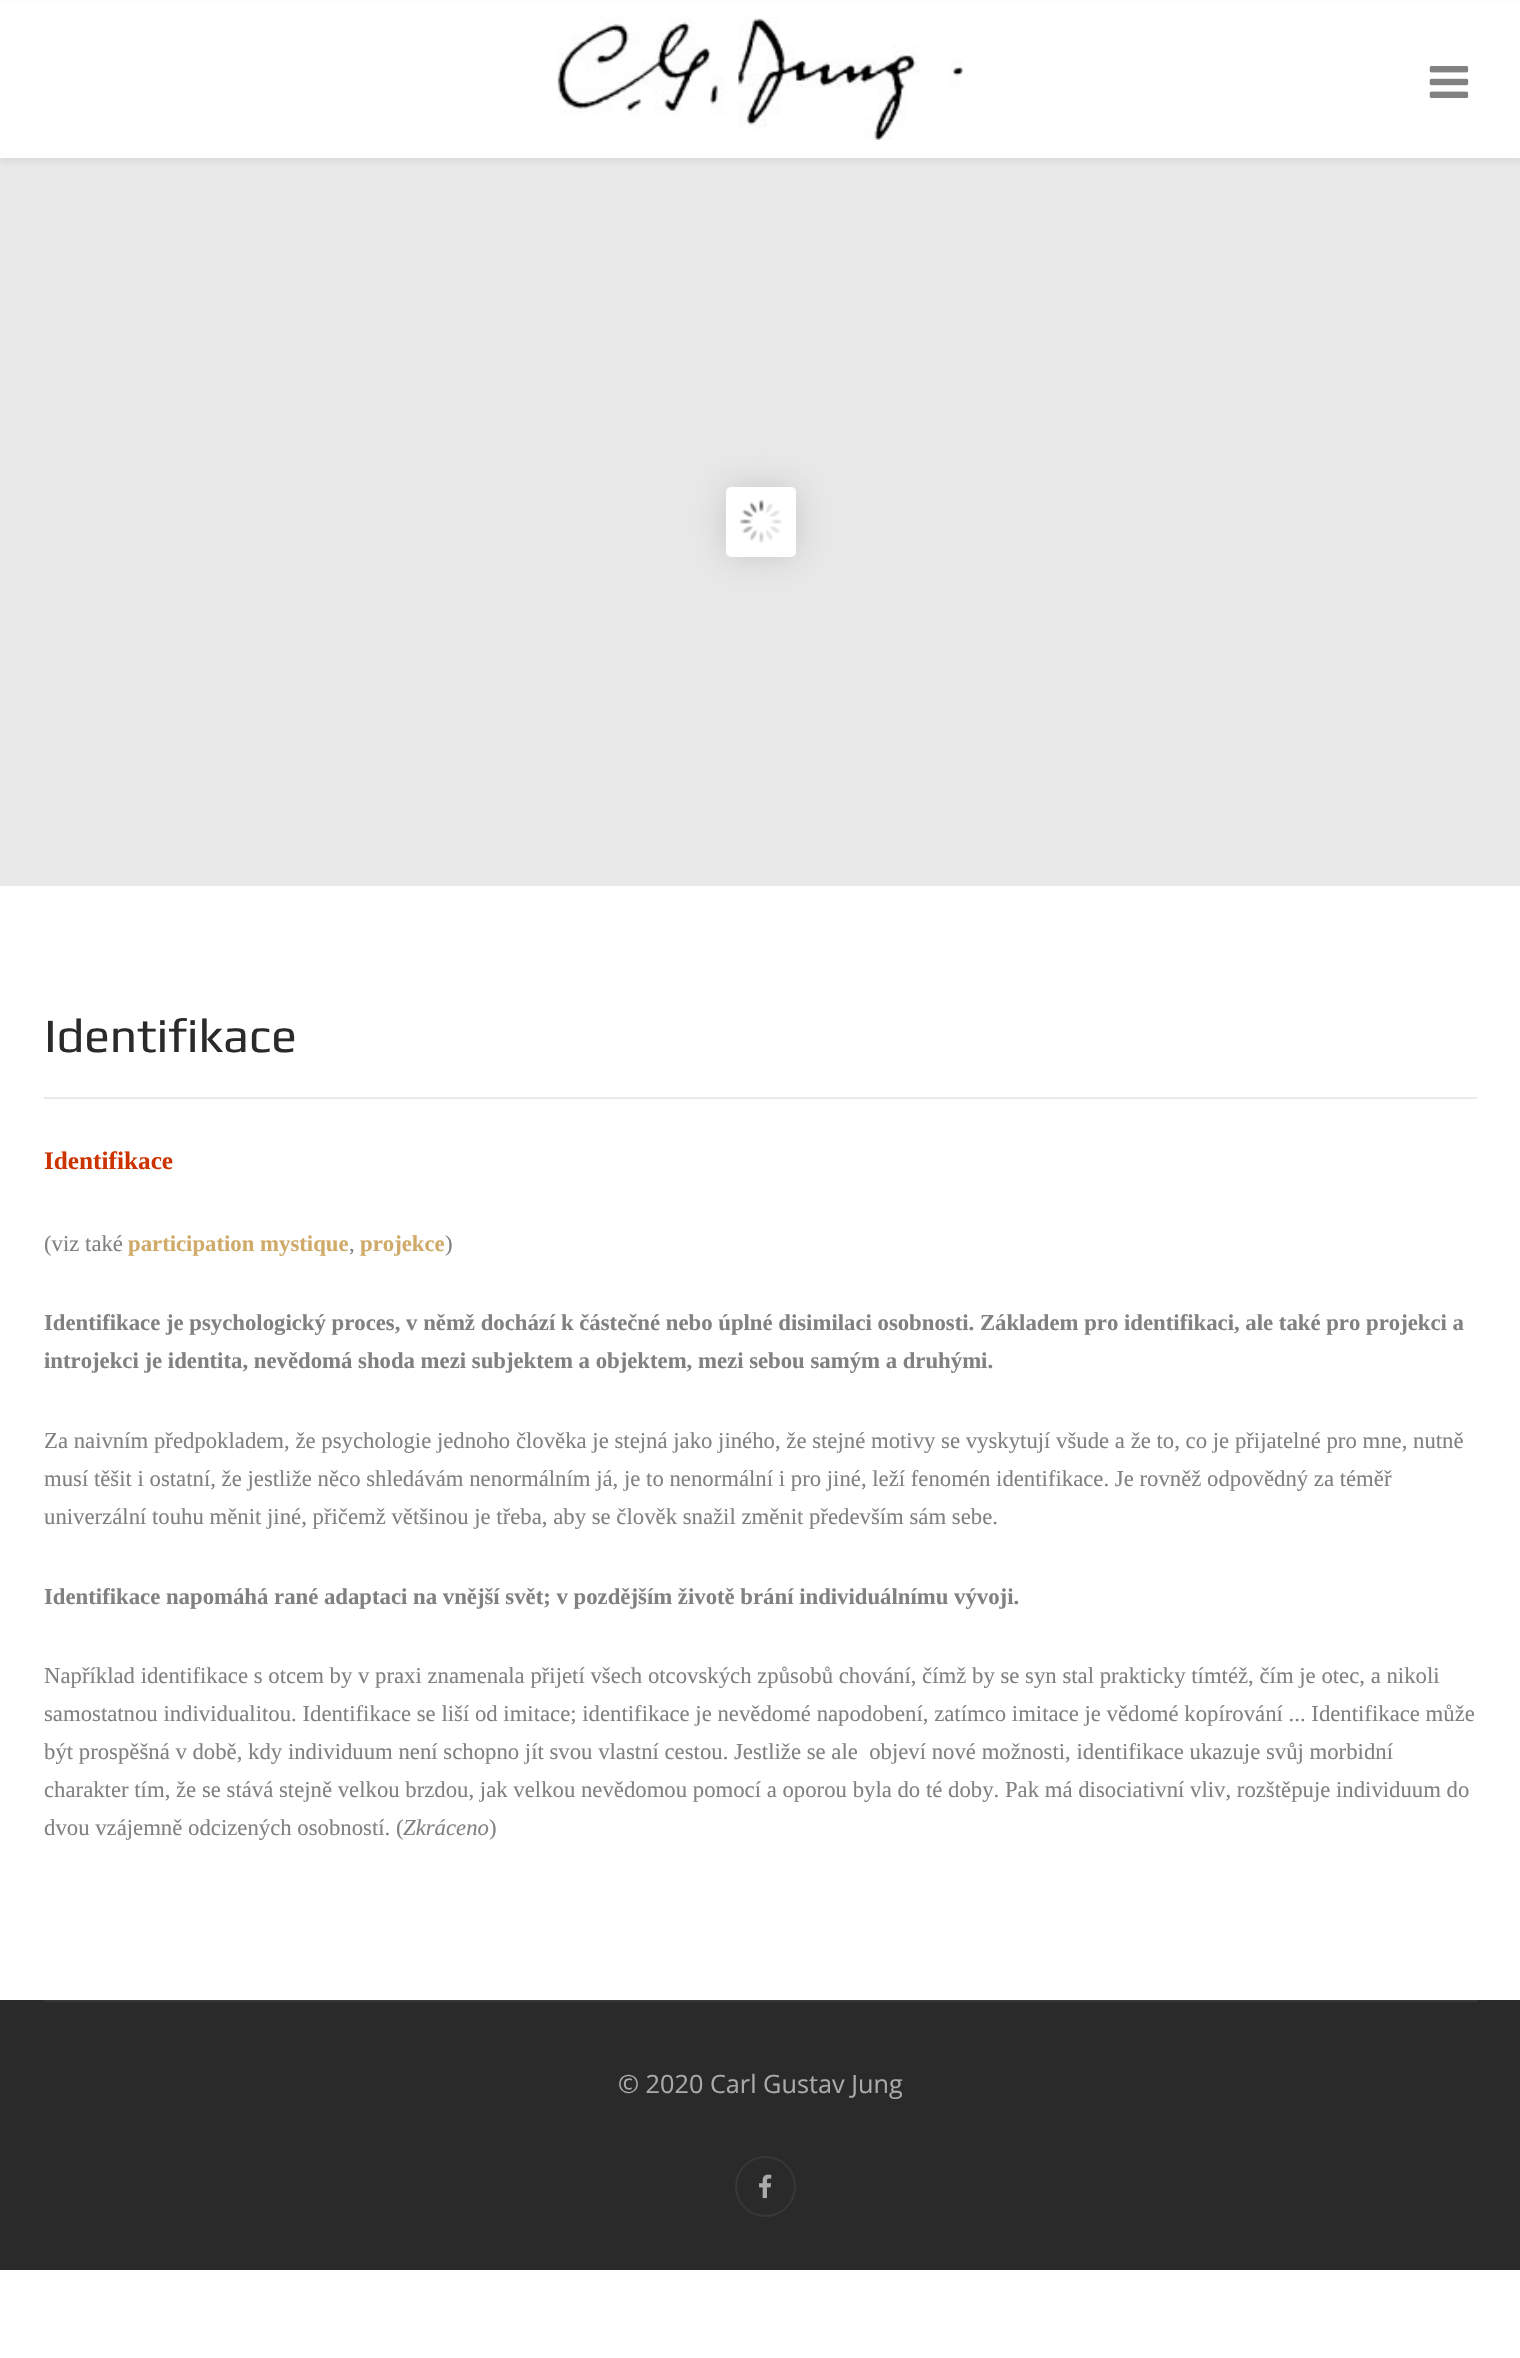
#include "include/core/SkBlurTypes.h"
#include "include/core/SkCanvas.h"
#include "include/core/SkData.h"
#include "include/core/SkFont.h"
#include "include/core/SkFontMgr.h"
#include "include/core/SkImage.h"
#include "include/core/SkMaskFilter.h"
#include "include/core/SkPaint.h"
#include "include/core/SkPathBuilder.h"
#include "include/core/SkTextBlob.h"
#include "include/effects/SkDashPathEffect.h"
#include "include/effects/SkGradientShader.h"
#include "include/utils/SkParsePath.h"

extern sk_sp<SkFontMgr> fontMgr;

static SkFont font(const char* family, int weight, float size, bool italic = false) {
    SkFontStyle style(weight, SkFontStyle::kNormal_Width,
        italic ? SkFontStyle::kItalic_Slant : SkFontStyle::kUpright_Slant);
    SkFont result(fontMgr->matchFamilyStyle(family, style), size);
    result.setSubpixel(true);
    return result;
}

static void drawLabel(SkCanvas* canvas, const char* s, float x, float y, const SkFont& font, SkColor color) {
    SkPaint ink(SkColor4f::FromColor(color));
    ink.setAntiAlias(true);
    canvas->drawString(s, x, y, font, ink);
}

static void fillRect(SkCanvas* canvas, float x, float y, float w, float h, SkColor color) {
    SkPaint ink(SkColor4f::FromColor(color));
    ink.setAntiAlias(true);
    canvas->drawRect(SkRect::MakeXYWH(x, y, w, h), ink);
}

static void fillRRect(SkCanvas* canvas, float x, float y, float w, float h, float radius, SkColor color) {
    SkPaint ink(SkColor4f::FromColor(color));
    ink.setAntiAlias(true);
    canvas->drawRoundRect(SkRect::MakeXYWH(x, y, w, h), radius, radius, ink);
}

static void drawPhoto(SkCanvas* canvas, const char* path, float x, float y, float w, float h) {
    auto image = SkImages::DeferredFromEncodedData(SkData::MakeFromFileName(path));
    canvas->drawImageRect(image, SkRect::MakeXYWH(x, y, w, h), SkSamplingOptions());
}

void draw(SkCanvas* canvas) {
    SkPaint paint;
    paint.setAntiAlias(true);
    canvas->clear(0xFFFFFFFF);
    fillRect(canvas, 0, 158, 1520, 728, 0xFFE9E9E9);
    paint.setColor(0x0D000000);
    paint.setMaskFilter(SkMaskFilter::MakeBlur(kNormal_SkBlurStyle, 2.5f));
    canvas->drawRect(SkRect::MakeXYWH(0, 5, 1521, 158), paint);
    paint.setMaskFilter(nullptr);
    fillRect(canvas, 0, 3, 1520, 155, 0xFFFFFFFF);
    drawPhoto(canvas, "assets/img1.png", 557, 17, 406, 123);
    drawPhoto(canvas, "assets/img2.png", 1429, 66, 40, 32);
    paint.setColor(0x26000000);
    paint.setMaskFilter(SkMaskFilter::MakeBlur(kNormal_SkBlurStyle, 17.5f));
    canvas->drawRoundRect(SkRect::MakeXYWH(726, 487, 70, 70), 5, 5, paint);
    paint.setMaskFilter(nullptr);
    fillRRect(canvas, 726, 487, 70, 70, 5, 0xFFFFFFFF);
    drawPhoto(canvas, "assets/img3.png", 740, 500, 42, 43);
    fillRect(canvas, 44, 1097, 1433, 2, 0xFFE9E9E9);
    SkFont font1 = font("Play", 400, 48);
    drawLabel(canvas, "Identifikace", 44, 1052, font1, 0xFF2A2A2A);
    SkFont font2 = font("Liberation Serif", 700, 25.25f);
    drawLabel(canvas, "Identifikace", 44, 1169, font2, 0xFFCC3300);
    SkFont font3 = font("Liberation Serif", 400, 22.75f);
    drawLabel(canvas, "(viz také", 44, 1251, font3, 0xFF818181);
    SkFont font4 = font("Liberation Serif", 700, 22.75f);
    drawLabel(canvas, "participation mystique", 128, 1251, font4, 0xFFD0AA69);
    drawLabel(canvas, ",", 349, 1251, font3, 0xFF818181);
    drawLabel(canvas, "projekce", 360, 1251, font4, 0xFFD0AA69);
    drawLabel(canvas, ")", 445, 1251, font3, 0xFF818181);
    drawLabel(canvas, "Identifikace je psychologický proces, v němž dochází k částečné nebo úplné disimilaci osobnosti. Základem pro identifikaci, ale také pro projekci a", 44, 1330, font4, 0xFF818181);
    drawLabel(canvas, "introjekci je identita, nevědomá shoda mezi subjektem a objektem, mezi sebou samým a druhými.", 44, 1368, font4, 0xFF818181);
    drawLabel(canvas, "Za naivním předpokladem, že psychologie jednoho člověka je stejná jako jiného, že stejné motivy se vyskytují všude a že to, co je přijatelné pro mne, nutně", 44, 1448, font3, 0xFF818181);
    drawLabel(canvas, "musí těšit i ostatní, že jestliže něco shledávám nenormálním já, je to nenormální i pro jiné, leží fenomén identifikace. Je rovněž odpovědný za téměř", 44, 1486, font3, 0xFF818181);
    drawLabel(canvas, "univerzální touhu měnit jiné, přičemž většinou je třeba, aby se člověk snažil změnit především sám sebe.", 44, 1524, font3, 0xFF818181);
    drawLabel(canvas, "Identifikace napomáhá rané adaptaci na vnější svět; v pozdějším životě brání individuálnímu vývoji.", 44, 1604, font4, 0xFF818181);
    drawLabel(canvas, "Například identifikace s otcem by v praxi znamenala přijetí všech otcovských způsobů chování, čímž by se syn stal prakticky tímtéž, čím je otec, a nikoli", 44, 1683, font3, 0xFF818181);
    drawLabel(canvas, "samostatnou individualitou. Identifikace se liší od imitace; identifikace je nevědomé napodobení, zatímco imitace je vědomé kopírování ... Identifikace může", 44, 1721, font3, 0xFF818181);
    drawLabel(canvas, "být prospěšná v době, kdy individuum není schopno jít svou vlastní cestou. Jestliže se ale  objeví nové možnosti, identifikace ukazuje svůj morbidní", 44, 1759, font3, 0xFF818181);
    drawLabel(canvas, "charakter tím, že se stává stejně velkou brzdou, jak velkou nevědomou pomocí a oporou byla do té doby. Pak má disociativní vliv, rozštěpuje individuum do", 44, 1797, font3, 0xFF818181);
    drawLabel(canvas, "dvou vzájemně odcizených osobností. (", 44, 1835, font3, 0xFF818181);
    SkFont font5 = font("Liberation Serif", 400, 22.75f, true);
    drawLabel(canvas, "Zkráceno", 403, 1835, font5, 0xFF818181);
    drawLabel(canvas, ")", 489, 1835, font3, 0xFF818181);
    fillRect(canvas, 0, 2000, 1520, 270, 0xFF2A2A2A);
    fillRect(canvas, 44, 2000, 1433, 2, 0xFF373737);
    SkFont font6 = font("Open Sans", 400, 25.25f);
    drawLabel(canvas, "© 2020 Carl Gustav Jung", 618, 2093, font6, 0xFFAAAAAA);
    paint.setStroke(true);
    paint.setStrokeWidth(2);
    paint.setColor(0xFF373737);
    canvas->drawCircle(765.5f, 2186.5f, 29.5f, paint);
    drawPhoto(canvas, "assets/img4.png", 759, 2174, 13, 25);
}
